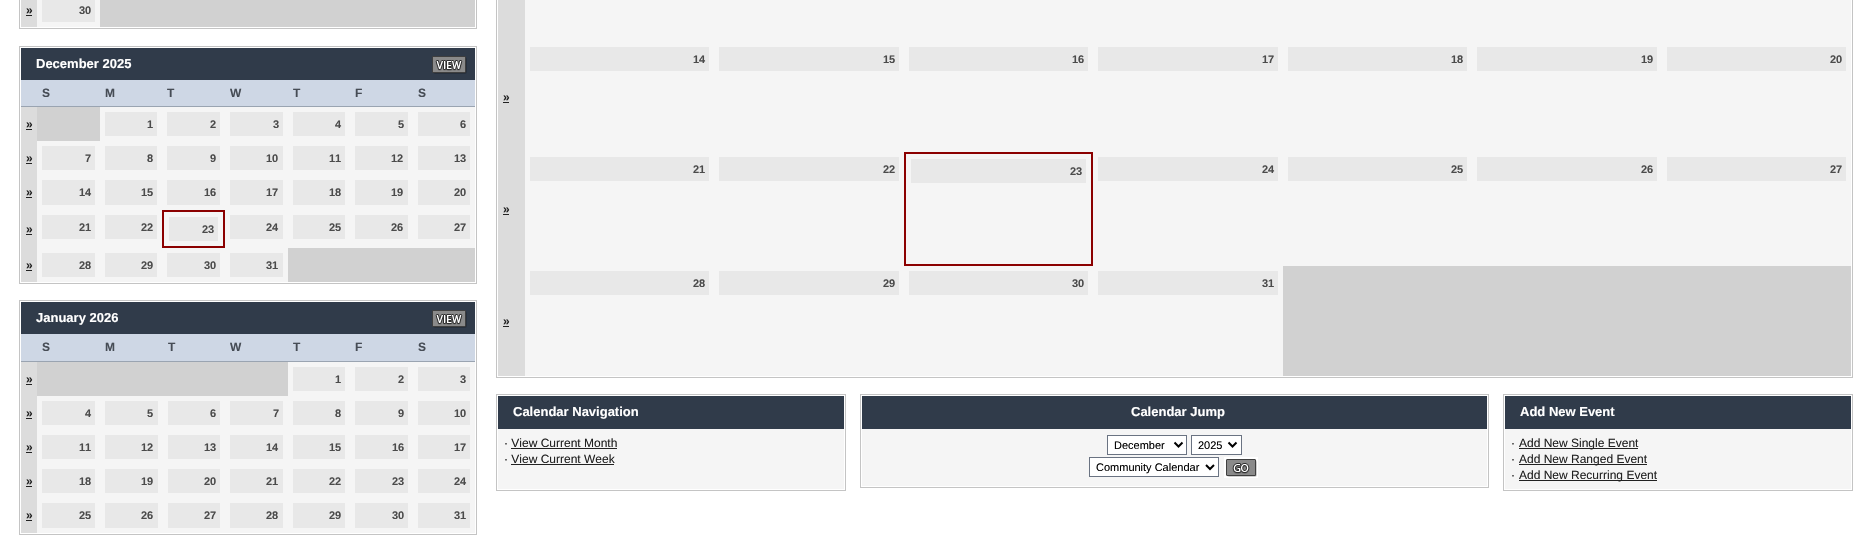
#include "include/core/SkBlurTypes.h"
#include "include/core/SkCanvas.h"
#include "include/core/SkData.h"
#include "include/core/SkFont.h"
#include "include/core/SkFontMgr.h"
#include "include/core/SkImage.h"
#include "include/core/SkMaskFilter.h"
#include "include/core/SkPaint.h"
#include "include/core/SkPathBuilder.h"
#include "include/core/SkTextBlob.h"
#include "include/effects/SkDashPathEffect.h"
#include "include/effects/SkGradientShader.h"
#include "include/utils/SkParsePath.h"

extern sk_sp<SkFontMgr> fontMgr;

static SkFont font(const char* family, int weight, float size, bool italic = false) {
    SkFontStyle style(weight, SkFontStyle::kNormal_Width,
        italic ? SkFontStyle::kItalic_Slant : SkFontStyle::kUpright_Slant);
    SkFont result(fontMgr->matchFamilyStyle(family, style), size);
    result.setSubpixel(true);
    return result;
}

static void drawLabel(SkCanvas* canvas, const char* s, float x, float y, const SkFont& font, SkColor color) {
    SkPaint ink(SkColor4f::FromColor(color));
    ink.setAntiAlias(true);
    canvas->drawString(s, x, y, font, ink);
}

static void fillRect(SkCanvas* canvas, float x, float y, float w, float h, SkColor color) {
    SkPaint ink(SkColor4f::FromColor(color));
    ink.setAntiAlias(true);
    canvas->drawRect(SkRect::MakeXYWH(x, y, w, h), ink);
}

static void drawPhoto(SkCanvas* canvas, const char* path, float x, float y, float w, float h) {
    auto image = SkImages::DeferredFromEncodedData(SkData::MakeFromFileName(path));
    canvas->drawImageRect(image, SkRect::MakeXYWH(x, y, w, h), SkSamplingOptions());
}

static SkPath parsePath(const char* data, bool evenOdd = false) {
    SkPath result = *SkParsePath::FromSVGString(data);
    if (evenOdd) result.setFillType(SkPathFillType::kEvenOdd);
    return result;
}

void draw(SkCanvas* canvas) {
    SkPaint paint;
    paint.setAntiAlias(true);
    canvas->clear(0xFFFFFFFF);
    paint.setStroke(true);
    paint.setStrokeWidth(1);
    paint.setColor(0xFFC4C4C4);
    canvas->drawRect(SkRect::MakeXYWH(19.5f, -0.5f, 457, 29), paint);
    fillRect(canvas, 21, 0, 16, 27, 0xFFDCDCDC);
    SkFont font1 = font("Liberation Sans", 700, 12);
    drawLabel(canvas, "»", 26, 14, font1, 0xFF222222);
    fillRect(canvas, 26, 15, 6, 1, 0xFF222222);
    fillRect(canvas, 37, 0, 63, 27, 0xFFF5F5F5);
    fillRect(canvas, 42, 0, 53, 22, 0xFFE8E8E8);
    SkFont font2 = font("Liberation Sans", 700, 11);
    drawLabel(canvas, "30", 79, 14, font2, 0xFF4B4B4B);
    fillRect(canvas, 100, 0, 375, 27, 0xFFD1D1D1);
    canvas->drawRect(SkRect::MakeXYWH(19.5f, 46.5f, 457, 237), paint);
    fillRect(canvas, 21, 48, 454, 32, 0xFF303B4A);
    SkFont font3 = font("Liberation Sans", 700, 13);
    drawLabel(canvas, "December 2025", 36, 68, font3, 0xFFFFFFFF);
    drawPhoto(canvas, "assets/img1.png", 432, 56, 35, 18);
    fillRect(canvas, 21, 80, 454, 26, 0xFFCED7E5);
    fillRect(canvas, 21, 106, 454, 1, 0xFF9AA4B1);
    drawLabel(canvas, "S", 42, 97, font1, 0xFF464C55);
    drawLabel(canvas, "M", 105, 97, font1, 0xFF464C55);
    drawLabel(canvas, "T", 167, 97, font1, 0xFF464C55);
    drawLabel(canvas, "W", 230, 97, font1, 0xFF464C55);
    drawLabel(canvas, "T", 293, 97, font1, 0xFF464C55);
    drawLabel(canvas, "F", 355, 97, font1, 0xFF464C55);
    drawLabel(canvas, "S", 418, 97, font1, 0xFF464C55);
    fillRect(canvas, 21, 107, 16, 175, 0xFFDCDCDC);
    drawLabel(canvas, "»", 26, 128, font1, 0xFF222222);
    fillRect(canvas, 26, 129, 6, 1, 0xFF222222);
    fillRect(canvas, 37, 107, 63, 34, 0xFFD1D1D1);
    fillRect(canvas, 100, 107, 375, 34, 0xFFF5F5F5);
    fillRect(canvas, 105, 112, 52, 24, 0xFFE8E8E8);
    drawLabel(canvas, "1", 147, 128, font2, 0xFF4B4B4B);
    fillRect(canvas, 167, 112, 53, 24, 0xFFE8E8E8);
    drawLabel(canvas, "2", 210, 128, font2, 0xFF4B4B4B);
    fillRect(canvas, 230, 112, 53, 24, 0xFFE8E8E8);
    drawLabel(canvas, "3", 273, 128, font2, 0xFF4B4B4B);
    fillRect(canvas, 293, 112, 52, 24, 0xFFE8E8E8);
    drawLabel(canvas, "4", 335, 128, font2, 0xFF4B4B4B);
    fillRect(canvas, 355, 112, 53, 24, 0xFFE8E8E8);
    drawLabel(canvas, "5", 398, 128, font2, 0xFF4B4B4B);
    fillRect(canvas, 418, 112, 52, 24, 0xFFE8E8E8);
    drawLabel(canvas, "6", 460, 128, font2, 0xFF4B4B4B);
    drawLabel(canvas, "»", 26, 162, font1, 0xFF222222);
    fillRect(canvas, 26, 163, 6, 1, 0xFF222222);
    fillRect(canvas, 37, 141, 438, 34, 0xFFF5F5F5);
    fillRect(canvas, 42, 146, 53, 24, 0xFFE8E8E8);
    drawLabel(canvas, "7", 85, 162, font2, 0xFF4B4B4B);
    fillRect(canvas, 105, 146, 52, 24, 0xFFE8E8E8);
    drawLabel(canvas, "8", 147, 162, font2, 0xFF4B4B4B);
    fillRect(canvas, 167, 146, 53, 24, 0xFFE8E8E8);
    drawLabel(canvas, "9", 210, 162, font2, 0xFF4B4B4B);
    fillRect(canvas, 230, 146, 53, 24, 0xFFE8E8E8);
    drawLabel(canvas, "10", 266, 162, font2, 0xFF4B4B4B);
    fillRect(canvas, 293, 146, 52, 24, 0xFFE8E8E8);
    drawLabel(canvas, "11", 329, 162, font2, 0xFF4B4B4B);
    fillRect(canvas, 355, 146, 53, 24, 0xFFE8E8E8);
    drawLabel(canvas, "12", 391, 162, font2, 0xFF4B4B4B);
    fillRect(canvas, 418, 146, 52, 24, 0xFFE8E8E8);
    drawLabel(canvas, "13", 454, 162, font2, 0xFF4B4B4B);
    drawLabel(canvas, "»", 26, 196, font1, 0xFF222222);
    fillRect(canvas, 26, 197, 6, 1, 0xFF222222);
    fillRect(canvas, 37, 175, 438, 35, 0xFFF5F5F5);
    fillRect(canvas, 42, 180, 53, 25, 0xFFE8E8E8);
    drawLabel(canvas, "14", 79, 196, font2, 0xFF4B4B4B);
    fillRect(canvas, 105, 180, 52, 25, 0xFFE8E8E8);
    drawLabel(canvas, "15", 141, 196, font2, 0xFF4B4B4B);
    fillRect(canvas, 167, 180, 53, 25, 0xFFE8E8E8);
    drawLabel(canvas, "16", 204, 196, font2, 0xFF4B4B4B);
    fillRect(canvas, 230, 180, 53, 25, 0xFFE8E8E8);
    drawLabel(canvas, "17", 266, 196, font2, 0xFF4B4B4B);
    fillRect(canvas, 293, 180, 52, 25, 0xFFE8E8E8);
    drawLabel(canvas, "18", 329, 196, font2, 0xFF4B4B4B);
    fillRect(canvas, 355, 180, 53, 25, 0xFFE8E8E8);
    drawLabel(canvas, "19", 391, 196, font2, 0xFF4B4B4B);
    fillRect(canvas, 418, 180, 52, 25, 0xFFE8E8E8);
    drawLabel(canvas, "20", 454, 196, font2, 0xFF4B4B4B);
    drawLabel(canvas, "»", 26, 233, font1, 0xFF222222);
    fillRect(canvas, 26, 234, 6, 1, 0xFF222222);
    fillRect(canvas, 37, 210, 125, 38, 0xFFF5F5F5);
    fillRect(canvas, 42, 215, 53, 24, 0xFFE8E8E8);
    drawLabel(canvas, "21", 79, 231, font2, 0xFF4B4B4B);
    fillRect(canvas, 105, 215, 52, 24, 0xFFE8E8E8);
    drawLabel(canvas, "22", 141, 231, font2, 0xFF4B4B4B);
    paint.setStroke(false);
    paint.setColor(0xFFF5F5F5);
    canvas->drawRect(SkRect::MakeXYWH(163, 211, 61, 36), paint);
    paint.setStroke(true);
    paint.setStrokeWidth(2);
    paint.setColor(0xFF8B0000);
    canvas->drawRect(SkRect::MakeXYWH(163, 211, 61, 36), paint);
    fillRect(canvas, 169, 217, 49, 24, 0xFFE8E8E8);
    drawLabel(canvas, "23", 202, 233, font2, 0xFF4B4B4B);
    fillRect(canvas, 225, 210, 250, 38, 0xFFF5F5F5);
    fillRect(canvas, 230, 215, 53, 24, 0xFFE8E8E8);
    drawLabel(canvas, "24", 266, 231, font2, 0xFF4B4B4B);
    fillRect(canvas, 293, 215, 52, 24, 0xFFE8E8E8);
    drawLabel(canvas, "25", 329, 231, font2, 0xFF4B4B4B);
    fillRect(canvas, 355, 215, 53, 24, 0xFFE8E8E8);
    drawLabel(canvas, "26", 391, 231, font2, 0xFF4B4B4B);
    fillRect(canvas, 418, 215, 52, 24, 0xFFE8E8E8);
    drawLabel(canvas, "27", 454, 231, font2, 0xFF4B4B4B);
    drawLabel(canvas, "»", 26, 269, font1, 0xFF222222);
    fillRect(canvas, 26, 270, 6, 1, 0xFF222222);
    fillRect(canvas, 37, 248, 251, 34, 0xFFF5F5F5);
    fillRect(canvas, 42, 253, 53, 24, 0xFFE8E8E8);
    drawLabel(canvas, "28", 79, 269, font2, 0xFF4B4B4B);
    fillRect(canvas, 105, 253, 52, 24, 0xFFE8E8E8);
    drawLabel(canvas, "29", 141, 269, font2, 0xFF4B4B4B);
    fillRect(canvas, 167, 253, 53, 24, 0xFFE8E8E8);
    drawLabel(canvas, "30", 204, 269, font2, 0xFF4B4B4B);
    fillRect(canvas, 230, 253, 53, 24, 0xFFE8E8E8);
    drawLabel(canvas, "31", 266, 269, font2, 0xFF4B4B4B);
    fillRect(canvas, 288, 248, 187, 34, 0xFFD1D1D1);
    paint.setStrokeWidth(1);
    paint.setColor(0xFFC4C4C4);
    canvas->drawRect(SkRect::MakeXYWH(19.5f, 300.5f, 457, 234), paint);
    fillRect(canvas, 21, 302, 454, 32, 0xFF303B4A);
    drawLabel(canvas, "January 2026", 36, 322, font3, 0xFFFFFFFF);
    drawPhoto(canvas, "assets/img1.png", 432, 310, 35, 18);
    fillRect(canvas, 21, 334, 454, 27, 0xFFCED7E5);
    fillRect(canvas, 21, 361, 454, 1, 0xFF9AA4B1);
    drawLabel(canvas, "S", 42, 351, font1, 0xFF464C55);
    drawLabel(canvas, "M", 105, 351, font1, 0xFF464C55);
    drawLabel(canvas, "T", 168, 351, font1, 0xFF464C55);
    drawLabel(canvas, "W", 230, 351, font1, 0xFF464C55);
    drawLabel(canvas, "T", 293, 351, font1, 0xFF464C55);
    drawLabel(canvas, "F", 355, 351, font1, 0xFF464C55);
    drawLabel(canvas, "S", 418, 351, font1, 0xFF464C55);
    fillRect(canvas, 21, 362, 16, 171, 0xFFDCDCDC);
    drawLabel(canvas, "»", 26, 383, font1, 0xFF222222);
    fillRect(canvas, 26, 384, 6, 1, 0xFF222222);
    fillRect(canvas, 37, 362, 251, 34, 0xFFD1D1D1);
    fillRect(canvas, 288, 362, 187, 34, 0xFFF5F5F5);
    fillRect(canvas, 293, 367, 52, 24, 0xFFE8E8E8);
    drawLabel(canvas, "1", 335, 383, font2, 0xFF4B4B4B);
    fillRect(canvas, 355, 367, 53, 24, 0xFFE8E8E8);
    drawLabel(canvas, "2", 398, 383, font2, 0xFF4B4B4B);
    fillRect(canvas, 418, 367, 52, 24, 0xFFE8E8E8);
    drawLabel(canvas, "3", 460, 383, font2, 0xFF4B4B4B);
    drawLabel(canvas, "»", 26, 417, font1, 0xFF222222);
    fillRect(canvas, 26, 418, 6, 1, 0xFF222222);
    fillRect(canvas, 37, 396, 438, 34, 0xFFF5F5F5);
    fillRect(canvas, 42, 401, 53, 24, 0xFFE8E8E8);
    drawLabel(canvas, "4", 85, 417, font2, 0xFF4B4B4B);
    fillRect(canvas, 105, 401, 53, 24, 0xFFE8E8E8);
    drawLabel(canvas, "5", 147, 417, font2, 0xFF4B4B4B);
    fillRect(canvas, 168, 401, 52, 24, 0xFFE8E8E8);
    drawLabel(canvas, "6", 210, 417, font2, 0xFF4B4B4B);
    fillRect(canvas, 230, 401, 53, 24, 0xFFE8E8E8);
    drawLabel(canvas, "7", 273, 417, font2, 0xFF4B4B4B);
    fillRect(canvas, 293, 401, 52, 24, 0xFFE8E8E8);
    drawLabel(canvas, "8", 335, 417, font2, 0xFF4B4B4B);
    fillRect(canvas, 355, 401, 53, 24, 0xFFE8E8E8);
    drawLabel(canvas, "9", 398, 417, font2, 0xFF4B4B4B);
    fillRect(canvas, 418, 401, 52, 24, 0xFFE8E8E8);
    drawLabel(canvas, "10", 454, 417, font2, 0xFF4B4B4B);
    drawLabel(canvas, "»", 26, 451, font1, 0xFF222222);
    fillRect(canvas, 26, 452, 6, 1, 0xFF222222);
    fillRect(canvas, 37, 430, 438, 34, 0xFFF5F5F5);
    fillRect(canvas, 42, 435, 53, 24, 0xFFE8E8E8);
    drawLabel(canvas, "11", 79, 451, font2, 0xFF4B4B4B);
    fillRect(canvas, 105, 435, 53, 24, 0xFFE8E8E8);
    drawLabel(canvas, "12", 141, 451, font2, 0xFF4B4B4B);
    fillRect(canvas, 168, 435, 52, 24, 0xFFE8E8E8);
    drawLabel(canvas, "13", 204, 451, font2, 0xFF4B4B4B);
    fillRect(canvas, 230, 435, 53, 24, 0xFFE8E8E8);
    drawLabel(canvas, "14", 266, 451, font2, 0xFF4B4B4B);
    fillRect(canvas, 293, 435, 52, 24, 0xFFE8E8E8);
    drawLabel(canvas, "15", 329, 451, font2, 0xFF4B4B4B);
    fillRect(canvas, 355, 435, 53, 24, 0xFFE8E8E8);
    drawLabel(canvas, "16", 392, 451, font2, 0xFF4B4B4B);
    fillRect(canvas, 418, 435, 52, 24, 0xFFE8E8E8);
    drawLabel(canvas, "17", 454, 451, font2, 0xFF4B4B4B);
    drawLabel(canvas, "»", 26, 485, font1, 0xFF222222);
    fillRect(canvas, 26, 486, 6, 1, 0xFF222222);
    fillRect(canvas, 37, 464, 438, 34, 0xFFF5F5F5);
    fillRect(canvas, 42, 469, 53, 24, 0xFFE8E8E8);
    drawLabel(canvas, "18", 79, 485, font2, 0xFF4B4B4B);
    fillRect(canvas, 105, 469, 53, 24, 0xFFE8E8E8);
    drawLabel(canvas, "19", 141, 485, font2, 0xFF4B4B4B);
    fillRect(canvas, 168, 469, 52, 24, 0xFFE8E8E8);
    drawLabel(canvas, "20", 204, 485, font2, 0xFF4B4B4B);
    fillRect(canvas, 230, 469, 53, 24, 0xFFE8E8E8);
    drawLabel(canvas, "21", 266, 485, font2, 0xFF4B4B4B);
    fillRect(canvas, 293, 469, 52, 24, 0xFFE8E8E8);
    drawLabel(canvas, "22", 329, 485, font2, 0xFF4B4B4B);
    fillRect(canvas, 355, 469, 53, 24, 0xFFE8E8E8);
    drawLabel(canvas, "23", 392, 485, font2, 0xFF4B4B4B);
    fillRect(canvas, 418, 469, 52, 24, 0xFFE8E8E8);
    drawLabel(canvas, "24", 454, 485, font2, 0xFF4B4B4B);
    drawLabel(canvas, "»", 26, 519, font1, 0xFF222222);
    fillRect(canvas, 26, 520, 6, 1, 0xFF222222);
    fillRect(canvas, 37, 498, 438, 35, 0xFFF5F5F5);
    fillRect(canvas, 42, 503, 53, 25, 0xFFE8E8E8);
    drawLabel(canvas, "25", 79, 519, font2, 0xFF4B4B4B);
    fillRect(canvas, 105, 503, 53, 25, 0xFFE8E8E8);
    drawLabel(canvas, "26", 141, 519, font2, 0xFF4B4B4B);
    fillRect(canvas, 168, 503, 52, 25, 0xFFE8E8E8);
    drawLabel(canvas, "27", 204, 519, font2, 0xFF4B4B4B);
    fillRect(canvas, 230, 503, 53, 25, 0xFFE8E8E8);
    drawLabel(canvas, "28", 266, 519, font2, 0xFF4B4B4B);
    fillRect(canvas, 293, 503, 52, 25, 0xFFE8E8E8);
    drawLabel(canvas, "29", 329, 519, font2, 0xFF4B4B4B);
    fillRect(canvas, 355, 503, 53, 25, 0xFFE8E8E8);
    drawLabel(canvas, "30", 392, 519, font2, 0xFF4B4B4B);
    fillRect(canvas, 418, 503, 52, 25, 0xFFE8E8E8);
    drawLabel(canvas, "31", 454, 519, font2, 0xFF4B4B4B);
    canvas->drawRect(SkRect::MakeXYWH(496.5f, -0.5f, 1356, 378), paint);
    fillRect(canvas, 498, 0, 27, 376, 0xFFDCDCDC);
    fillRect(canvas, 525, 0, 1326, 42, 0xFFF5F5F5);
    fillRect(canvas, 525, 42, 1326, 110, 0xFFF5F5F5);
    fillRect(canvas, 530, 47, 179, 24, 0xFFE8E8E8);
    drawLabel(canvas, "14", 693, 63, font2, 0xFF4B4B4B);
    fillRect(canvas, 719, 47, 180, 24, 0xFFE8E8E8);
    drawLabel(canvas, "15", 883, 63, font2, 0xFF4B4B4B);
    fillRect(canvas, 909, 47, 179, 24, 0xFFE8E8E8);
    drawLabel(canvas, "16", 1072, 63, font2, 0xFF4B4B4B);
    fillRect(canvas, 1098, 47, 180, 24, 0xFFE8E8E8);
    drawLabel(canvas, "17", 1262, 63, font2, 0xFF4B4B4B);
    fillRect(canvas, 1288, 47, 179, 24, 0xFFE8E8E8);
    drawLabel(canvas, "18", 1451, 63, font2, 0xFF4B4B4B);
    fillRect(canvas, 1477, 47, 180, 24, 0xFFE8E8E8);
    drawLabel(canvas, "19", 1641, 63, font2, 0xFF4B4B4B);
    fillRect(canvas, 1667, 47, 179, 24, 0xFFE8E8E8);
    drawLabel(canvas, "20", 1830, 63, font2, 0xFF4B4B4B);
    drawLabel(canvas, "»", 503, 101, font1, 0xFF222222);
    fillRect(canvas, 503, 102, 6, 1, 0xFF222222);
    fillRect(canvas, 525, 152, 379, 114, 0xFFF5F5F5);
    fillRect(canvas, 530, 157, 179, 24, 0xFFE8E8E8);
    drawLabel(canvas, "21", 693, 173, font2, 0xFF4B4B4B);
    fillRect(canvas, 719, 157, 180, 24, 0xFFE8E8E8);
    drawLabel(canvas, "22", 883, 173, font2, 0xFF4B4B4B);
    paint.setStroke(false);
    paint.setColor(0xFFF5F5F5);
    canvas->drawRect(SkRect::MakeXYWH(905, 153, 187, 112), paint);
    paint.setStroke(true);
    paint.setStrokeWidth(2);
    paint.setColor(0xFF8B0000);
    canvas->drawRect(SkRect::MakeXYWH(905, 153, 187, 112), paint);
    fillRect(canvas, 911, 159, 175, 24, 0xFFE8E8E8);
    drawLabel(canvas, "23", 1070, 175, font2, 0xFF4B4B4B);
    fillRect(canvas, 1093, 152, 758, 114, 0xFFF5F5F5);
    fillRect(canvas, 1098, 157, 180, 24, 0xFFE8E8E8);
    drawLabel(canvas, "24", 1262, 173, font2, 0xFF4B4B4B);
    fillRect(canvas, 1288, 157, 179, 24, 0xFFE8E8E8);
    drawLabel(canvas, "25", 1451, 173, font2, 0xFF4B4B4B);
    fillRect(canvas, 1477, 157, 180, 24, 0xFFE8E8E8);
    drawLabel(canvas, "26", 1641, 173, font2, 0xFF4B4B4B);
    fillRect(canvas, 1667, 157, 179, 24, 0xFFE8E8E8);
    drawLabel(canvas, "27", 1830, 173, font2, 0xFF4B4B4B);
    drawLabel(canvas, "»", 503, 213, font1, 0xFF222222);
    fillRect(canvas, 503, 214, 6, 1, 0xFF222222);
    fillRect(canvas, 525, 266, 758, 110, 0xFFF5F5F5);
    fillRect(canvas, 530, 271, 179, 24, 0xFFE8E8E8);
    drawLabel(canvas, "28", 693, 287, font2, 0xFF4B4B4B);
    fillRect(canvas, 719, 271, 180, 24, 0xFFE8E8E8);
    drawLabel(canvas, "29", 883, 287, font2, 0xFF4B4B4B);
    fillRect(canvas, 909, 271, 179, 24, 0xFFE8E8E8);
    drawLabel(canvas, "30", 1072, 287, font2, 0xFF4B4B4B);
    fillRect(canvas, 1098, 271, 180, 24, 0xFFE8E8E8);
    drawLabel(canvas, "31", 1262, 287, font2, 0xFF4B4B4B);
    fillRect(canvas, 1283, 266, 568, 110, 0xFFD1D1D1);
    drawLabel(canvas, "»", 503, 325, font1, 0xFF222222);
    fillRect(canvas, 503, 326, 6, 1, 0xFF222222);
    paint.setStrokeWidth(1);
    paint.setColor(0xFFC4C4C4);
    canvas->drawRect(SkRect::MakeXYWH(496.5f, 394.5f, 349, 96), paint);
    fillRect(canvas, 498, 396, 346, 33, 0xFF303B4A);
    drawLabel(canvas, "Calendar Navigation", 513, 416, font3, 0xFFFFFFFF);
    fillRect(canvas, 498, 429, 346, 60, 0xFFF5F5F5);
    SkFont font4 = font("Liberation Sans", 400, 12);
    drawLabel(canvas, "· View Current Month", 504, 447, font4, 0xFF222222);
    fillRect(canvas, 511, 448, 106, 1, 0xFF222222);
    drawLabel(canvas, "· View Current Week", 504, 463, font4, 0xFF222222);
    fillRect(canvas, 511, 464, 103, 1, 0xFF222222);
    canvas->drawRect(SkRect::MakeXYWH(860.5f, 394.5f, 628, 93), paint);
    fillRect(canvas, 862, 396, 625, 33, 0xFF303B4A);
    drawLabel(canvas, "Calendar Jump", 1131, 416, font3, 0xFFFFFFFF);
    fillRect(canvas, 862, 429, 625, 57, 0xFFF5F5F5);
    paint.setStroke(false);
    paint.setColor(0xFFFFFFFF);
    canvas->drawRect(SkRect::MakeXYWH(1107.5f, 435.5f, 79, 19), paint);
    paint.setStroke(true);
    paint.setColor(0xFF6A7382);
    canvas->drawRect(SkRect::MakeXYWH(1107.5f, 435.5f, 79, 19), paint);
    paint.setStrokeWidth(2);
    paint.setColor(0xFF000000);
    canvas->drawPath(parsePath("M1174.5 442.5L1178.5 446.5L1182.5 442.5"), paint);
    SkFont font5 = font("Liberation Sans", 400, 11);
    drawLabel(canvas, "December", 1114, 449, font5, 0xFF000000);
    paint.setStroke(false);
    paint.setColor(0xFFFFFFFF);
    canvas->drawRect(SkRect::MakeXYWH(1191.5f, 435.5f, 50, 19), paint);
    paint.setStroke(true);
    paint.setStrokeWidth(1);
    paint.setColor(0xFF6A7382);
    canvas->drawRect(SkRect::MakeXYWH(1191.5f, 435.5f, 50, 19), paint);
    paint.setStrokeWidth(2);
    paint.setColor(0xFF000000);
    canvas->drawPath(parsePath("M1228.5 442.5L1232.5 446.5L1236.5 442.5"), paint);
    drawLabel(canvas, "2025", 1198, 449, font5, 0xFF000000);
    paint.setStroke(false);
    paint.setColor(0xFFFFFFFF);
    canvas->drawRect(SkRect::MakeXYWH(1089.5f, 457.5f, 129, 19), paint);
    paint.setStroke(true);
    paint.setStrokeWidth(1);
    paint.setColor(0xFF6A7382);
    canvas->drawRect(SkRect::MakeXYWH(1089.5f, 457.5f, 129, 19), paint);
    paint.setStrokeWidth(2);
    paint.setColor(0xFF000000);
    canvas->drawPath(parsePath("M1206 465L1210 469L1214 465"), paint);
    drawLabel(canvas, "Community Calendar", 1096, 471, font5, 0xFF000000);
    drawPhoto(canvas, "assets/img2.png", 1224, 457, 34, 21);
    paint.setStrokeWidth(1);
    paint.setColor(0xFFC4C4C4);
    canvas->drawRect(SkRect::MakeXYWH(1503.5f, 394.5f, 349, 96), paint);
    fillRect(canvas, 1505, 396, 346, 33, 0xFF303B4A);
    drawLabel(canvas, "Add New Event", 1520, 416, font3, 0xFFFFFFFF);
    fillRect(canvas, 1505, 429, 346, 60, 0xFFF5F5F5);
    drawLabel(canvas, "·", 1511, 447, font4, 0xFF222222);
    fillRect(canvas, 1519, 448, 119, 1, 0xFF222222);
    drawLabel(canvas, "Add New Single Event", 1519, 447, font4, 0xFF222222);
    drawLabel(canvas, "·", 1511, 463, font4, 0xFF222222);
    fillRect(canvas, 1519, 464, 128, 1, 0xFF222222);
    drawLabel(canvas, "Add New Ranged Event", 1519, 463, font4, 0xFF222222);
    drawLabel(canvas, "·", 1511, 479, font4, 0xFF222222);
    fillRect(canvas, 1519, 480, 138, 1, 0xFF222222);
    drawLabel(canvas, "Add New Recurring Event", 1519, 479, font4, 0xFF222222);
}
